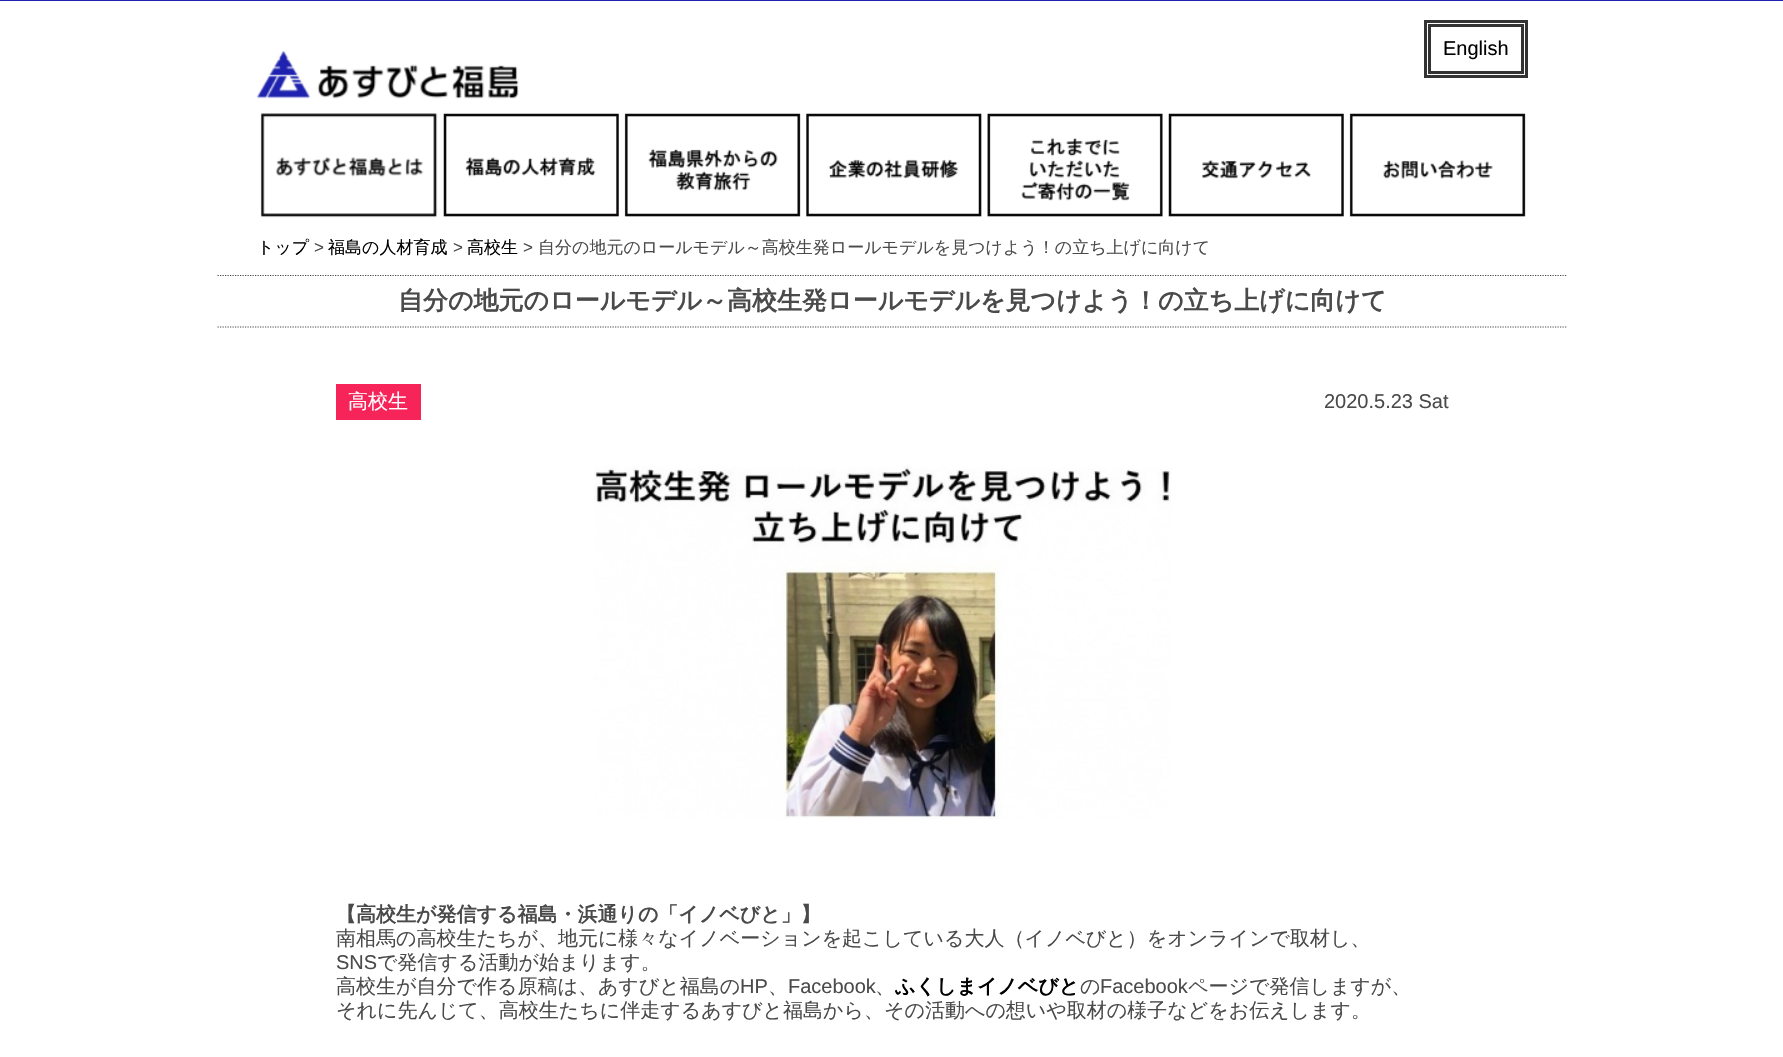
#include "include/core/SkBlurTypes.h"
#include "include/core/SkCanvas.h"
#include "include/core/SkData.h"
#include "include/core/SkFont.h"
#include "include/core/SkFontMgr.h"
#include "include/core/SkImage.h"
#include "include/core/SkMaskFilter.h"
#include "include/core/SkPaint.h"
#include "include/core/SkPathBuilder.h"
#include "include/core/SkTextBlob.h"
#include "include/effects/SkDashPathEffect.h"
#include "include/effects/SkGradientShader.h"
#include "include/utils/SkParsePath.h"

extern sk_sp<SkFontMgr> fontMgr;

static SkFont font(const char* family, int weight, float size, bool italic = false) {
    SkFontStyle style(weight, SkFontStyle::kNormal_Width,
        italic ? SkFontStyle::kItalic_Slant : SkFontStyle::kUpright_Slant);
    SkFont result(fontMgr->matchFamilyStyle(family, style), size);
    result.setSubpixel(true);
    return result;
}

static void drawLabel(SkCanvas* canvas, const char* s, float x, float y, const SkFont& font, SkColor color) {
    SkPaint ink(SkColor4f::FromColor(color));
    ink.setAntiAlias(true);
    canvas->drawString(s, x, y, font, ink);
}

static void fillRect(SkCanvas* canvas, float x, float y, float w, float h, SkColor color) {
    SkPaint ink(SkColor4f::FromColor(color));
    ink.setAntiAlias(true);
    canvas->drawRect(SkRect::MakeXYWH(x, y, w, h), ink);
}

static void drawPhoto(SkCanvas* canvas, const char* path, float x, float y, float w, float h) {
    auto image = SkImages::DeferredFromEncodedData(SkData::MakeFromFileName(path));
    canvas->drawImageRect(image, SkRect::MakeXYWH(x, y, w, h), SkSamplingOptions());
}

static SkPath parsePath(const char* data, bool evenOdd = false) {
    SkPath result = *SkParsePath::FromSVGString(data);
    if (evenOdd) result.setFillType(SkPathFillType::kEvenOdd);
    return result;
}

void draw(SkCanvas* canvas) {
    SkPaint paint;
    paint.setAntiAlias(true);
    canvas->clear(0xFFFFFFFF);
    fillRect(canvas, 0, 0, 1783, 1, 0xFF1E22AE);
    drawPhoto(canvas, "assets/img1.png", 257, 51, 262, 48);
    paint.setStroke(true);
    paint.setStrokeWidth(3);
    paint.setColor(0xFF333333);
    canvas->drawRect(SkRect::MakeXYWH(1425.5f, 21.5f, 101, 55), paint);
    canvas->drawRect(SkRect::MakeXYWH(1429.5f, 25.5f, 93, 47), paint);
    SkFont font1 = font("Liberation Sans", 400, 20);
    drawLabel(canvas, "English", 1443, 55, font1, 0xFF000000);
    drawPhoto(canvas, "assets/img2.png", 260, 113, 178, 105);
    drawPhoto(canvas, "assets/img3.png", 443, 113, 176, 104);
    drawPhoto(canvas, "assets/img4.png", 624, 113, 177, 104);
    drawPhoto(canvas, "assets/img5.png", 806, 113, 176, 104);
    drawPhoto(canvas, "assets/img6.png", 987, 113, 176, 104);
    drawPhoto(canvas, "assets/img7.png", 1168, 113, 176, 104);
    drawPhoto(canvas, "assets/img8.png", 1349, 113, 177, 104);
    SkFont font2 = font("WenQuanYi Zen Hei", 500, 17);
    drawLabel(canvas, "トップ", 257, 253, font2, 0xFF000000);
    SkFont font3 = font("Liberation Sans", 400, 17);
    drawLabel(canvas, ">", 314, 253, font3, 0xFF4A4A4A);
    drawLabel(canvas, "福島の人材育成", 328, 253, font2, 0xFF000000);
    drawLabel(canvas, ">", 453, 253, font3, 0xFF4A4A4A);
    drawLabel(canvas, "高校生", 467, 253, font2, 0xFF000000);
    drawLabel(canvas, ">", 523, 253, font3, 0xFF4A4A4A);
    drawLabel(canvas, "自分の地元のロールモデル～高校生発ロールモデルを見つけよう！の立ち上げに向けて", 538, 253, font2, 0xFF4A4A4A);
    canvas->save();
    canvas->clipRect(SkRect::MakeXYWH(0, 275, 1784, 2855));
    paint.setStrokeWidth(1.2f);
    paint.setColor(0xFF4A4A4A);
    paint.setPathEffect(SkDashPathEffect::Make({{1.25f, 1.25f}}, 0));
    canvas->drawPath(parsePath("M217.5 275.5H1567.5"), paint);
    paint.setPathEffect(nullptr);
    canvas->restore();
    paint.setPathEffect(SkDashPathEffect::Make({{1.25f, 1.25f}}, 0));
    canvas->drawPath(parsePath("M217.5 327H1567.5"), paint);
    paint.setPathEffect(nullptr);
    SkFont font4 = font("WenQuanYi Zen Hei", 700, 25);
    drawLabel(canvas, "自分の地元のロールモデル～高校生発ロールモデルを見つけよう！の立ち上げに向けて", 398, 309, font4, 0xFF4A4A4A);
    fillRect(canvas, 336, 384, 85, 36, 0xFFF62459);
    SkFont font5 = font("WenQuanYi Zen Hei", 500, 20);
    drawLabel(canvas, "高校生", 348, 408, font5, 0xFFFFFFFF);
    drawLabel(canvas, "2020.5.23 Sat", 1324, 408, font1, 0xFF4A4A4A);
    drawPhoto(canvas, "assets/img9.png", 594, 466, 577, 353);
    SkFont font6 = font("WenQuanYi Zen Hei", 700, 20);
    drawLabel(canvas, "【高校生が発信する福島・浜通りの「イノベびと」】", 336, 921, font6, 0xFF4A4A4A);
    drawLabel(canvas, "南相馬の高校生たちが、地元に様々なイノベーションを起こしている大人（イノベびと）をオンラインで取材し、", 336, 945, font5, 0xFF4A4A4A);
    drawLabel(canvas, "SNS", 336, 969, font1, 0xFF4A4A4A);
    drawLabel(canvas, "で発信する活動が始まります。", 377, 969, font5, 0xFF4A4A4A);
    drawLabel(canvas, "高校生が自分で作る原稿は、あすびと福島の", 336, 993, font5, 0xFF4A4A4A);
    drawLabel(canvas, "HP", 740, 993, font1, 0xFF4A4A4A);
    drawLabel(canvas, "、", 768, 993, font5, 0xFF4A4A4A);
    drawLabel(canvas, "Facebook", 788, 993, font1, 0xFF4A4A4A);
    drawLabel(canvas, "、", 875, 993, font5, 0xFF4A4A4A);
    drawLabel(canvas, "ふくしまイノベびと", 895, 993, font6, 0xFF000000);
    drawLabel(canvas, "の", 1080, 993, font5, 0xFF4A4A4A);
    drawLabel(canvas, "Facebook", 1100, 993, font1, 0xFF4A4A4A);
    drawLabel(canvas, "ページで発信しますが、", 1188, 993, font5, 0xFF4A4A4A);
    drawLabel(canvas, "それに先んじて、高校生たちに伴走するあすびと福島から、その活動への想いや取材の様子などをお伝えします。", 336, 1017, font5, 0xFF4A4A4A);
}
